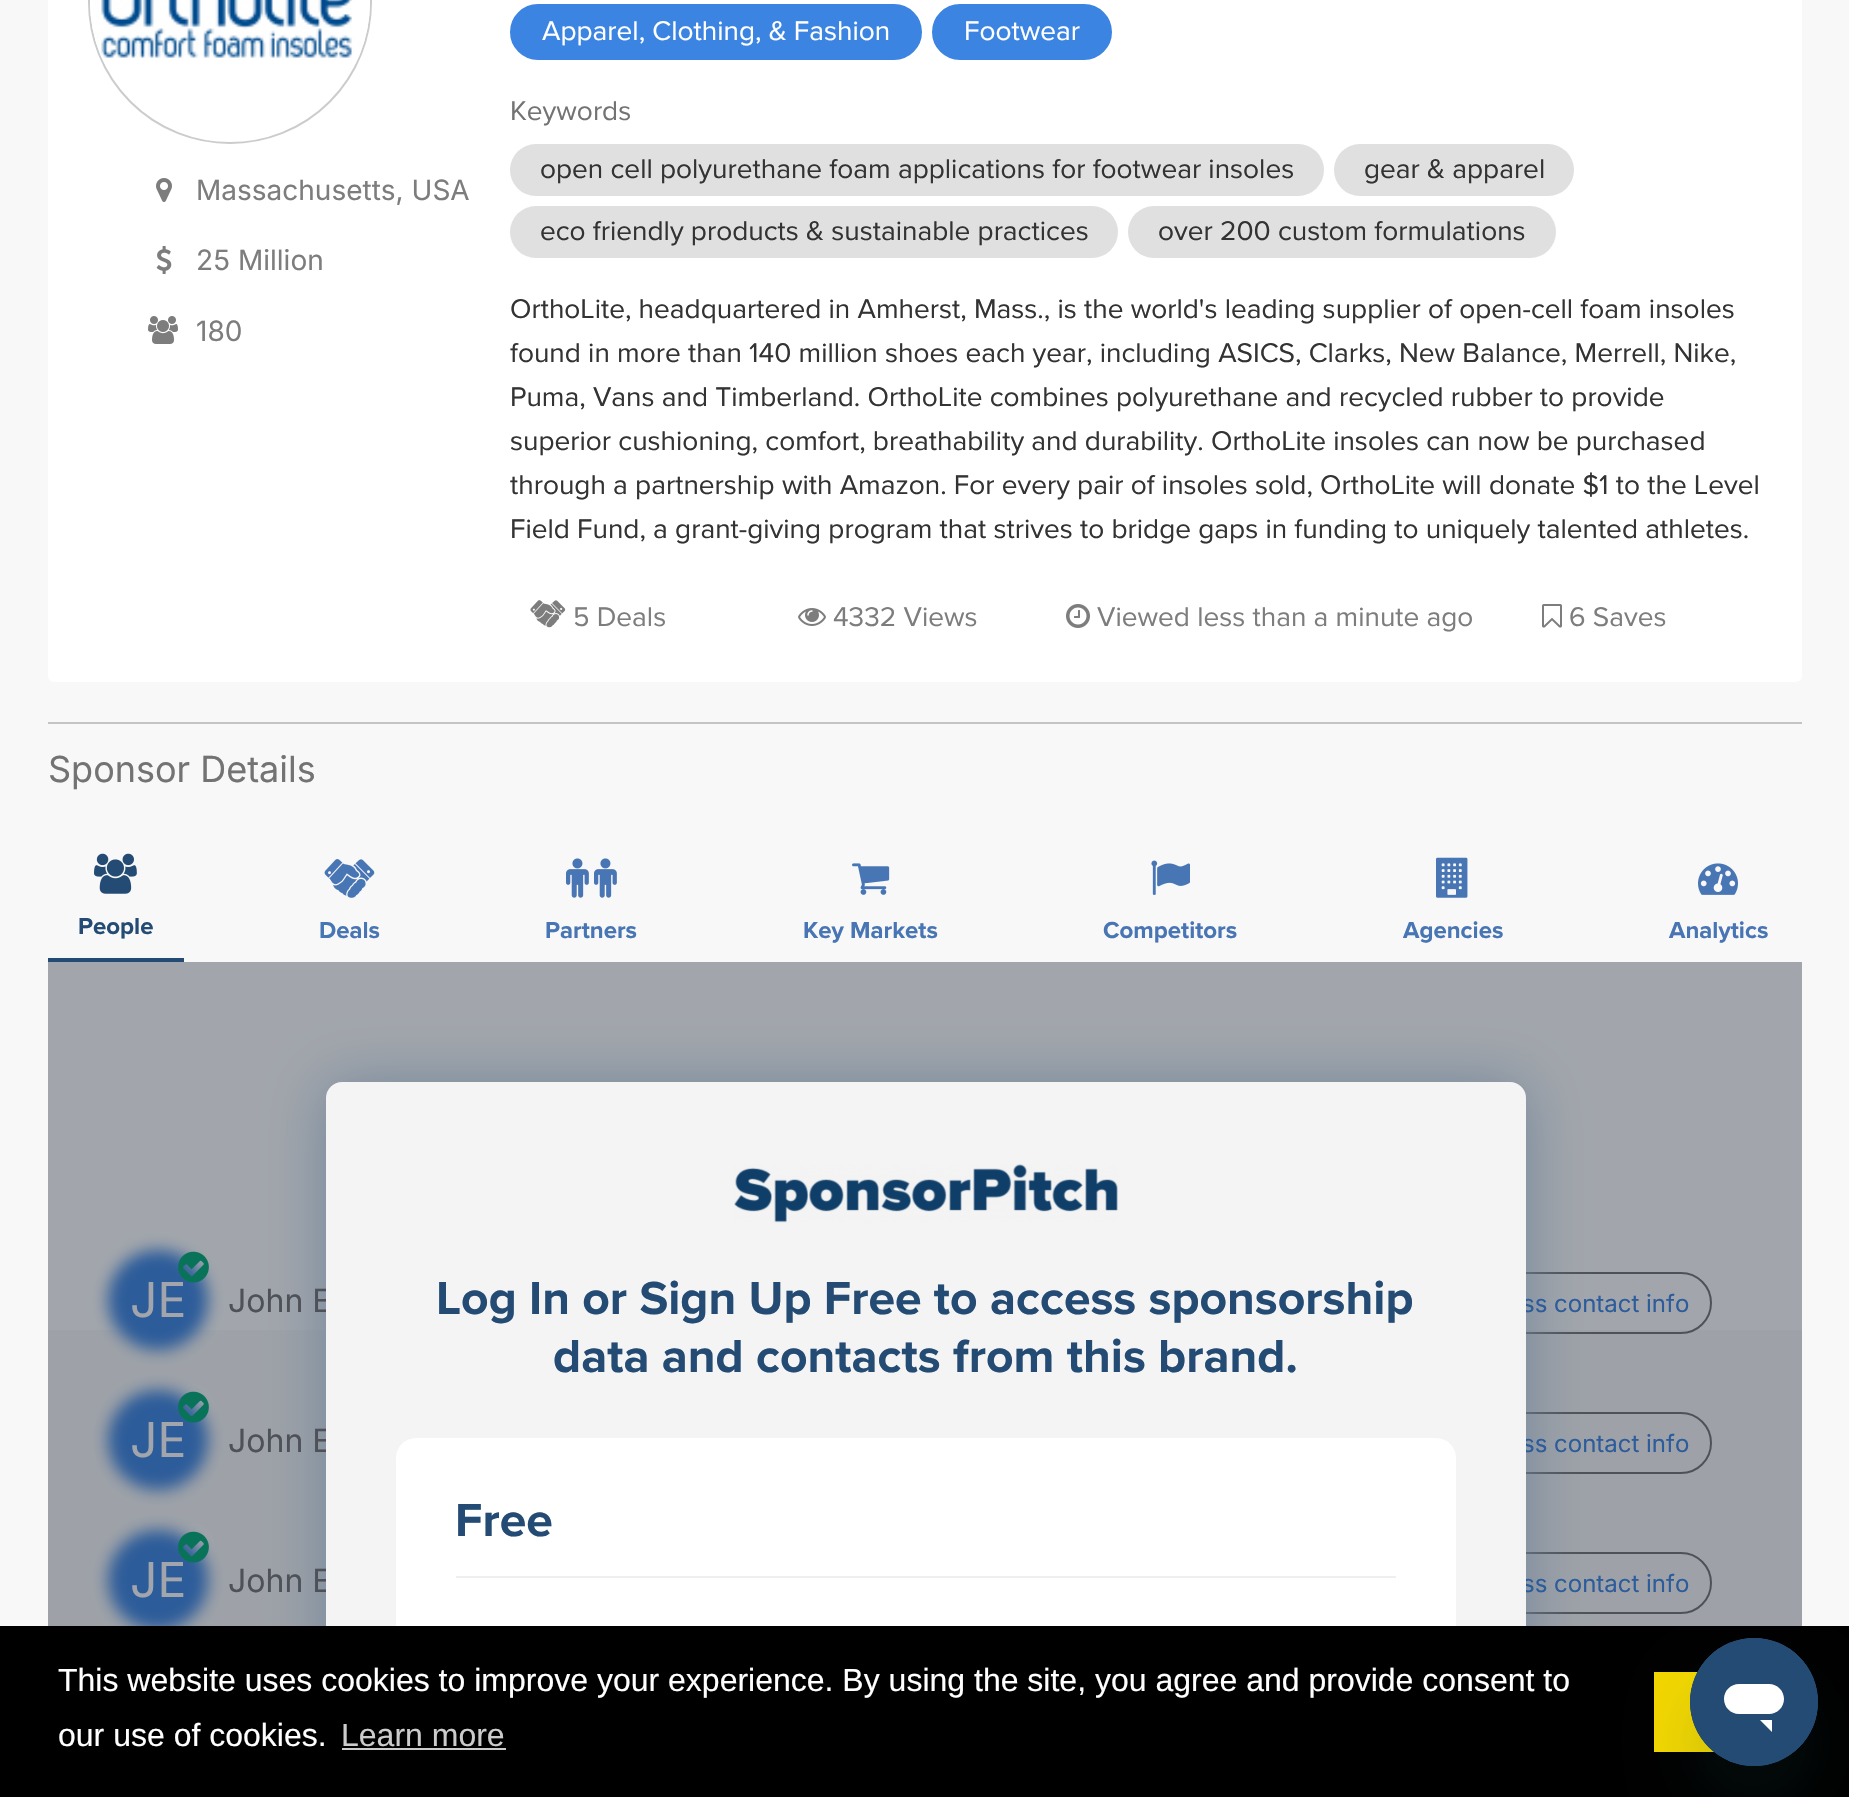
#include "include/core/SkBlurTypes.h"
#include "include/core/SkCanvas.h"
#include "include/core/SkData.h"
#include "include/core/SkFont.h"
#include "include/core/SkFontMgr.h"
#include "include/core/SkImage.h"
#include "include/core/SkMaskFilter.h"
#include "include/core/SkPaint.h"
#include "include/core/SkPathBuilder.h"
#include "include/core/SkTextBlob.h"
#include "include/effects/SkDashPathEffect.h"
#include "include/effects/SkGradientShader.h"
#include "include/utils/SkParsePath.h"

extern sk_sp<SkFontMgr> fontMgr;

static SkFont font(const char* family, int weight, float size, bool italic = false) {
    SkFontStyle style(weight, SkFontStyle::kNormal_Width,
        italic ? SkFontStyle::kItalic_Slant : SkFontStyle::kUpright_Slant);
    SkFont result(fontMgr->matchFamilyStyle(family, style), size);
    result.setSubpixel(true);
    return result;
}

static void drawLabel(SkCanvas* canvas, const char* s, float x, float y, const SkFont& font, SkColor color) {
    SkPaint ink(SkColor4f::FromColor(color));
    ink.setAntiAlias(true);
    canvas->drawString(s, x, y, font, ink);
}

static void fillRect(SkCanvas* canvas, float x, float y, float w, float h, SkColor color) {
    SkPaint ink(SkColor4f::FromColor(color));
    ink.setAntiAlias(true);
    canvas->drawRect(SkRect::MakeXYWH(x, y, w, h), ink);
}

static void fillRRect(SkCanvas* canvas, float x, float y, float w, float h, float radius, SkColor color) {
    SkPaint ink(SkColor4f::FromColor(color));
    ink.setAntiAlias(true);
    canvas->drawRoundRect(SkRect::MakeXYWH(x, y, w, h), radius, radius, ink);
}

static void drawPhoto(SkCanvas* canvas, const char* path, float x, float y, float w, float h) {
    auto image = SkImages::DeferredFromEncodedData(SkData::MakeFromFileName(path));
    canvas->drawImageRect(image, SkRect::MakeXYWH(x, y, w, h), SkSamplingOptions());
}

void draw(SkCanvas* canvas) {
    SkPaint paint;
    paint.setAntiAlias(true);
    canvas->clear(0xFFF8F8F8);
    fillRect(canvas, 48, 1330, 1754, 296, 0xFF9EA2A8);
    fillRRect(canvas, 48, -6, 1754, 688, 6, 0xFFFFFFFF);
    paint.setStroke(true);
    paint.setStrokeWidth(2);
    paint.setColor(0xFFCCCCCC);
    canvas->drawCircle(230, 2, 141, paint);
    drawPhoto(canvas, "assets/img1.png", 90, 0, 280, 64);
    drawPhoto(canvas, "assets/img2.png", 156, 178, 16, 24);
    SkFont font1 = font("Inter", 400, 28);
    drawLabel(canvas, "Massachusetts, USA", 196, 200, font1, 0xFF7D7D7D);
    drawPhoto(canvas, "assets/img3.png", 156, 246, 16, 28);
    drawLabel(canvas, "25 Million", 196, 270, font1, 0xFF7D7D7D);
    drawPhoto(canvas, "assets/img4.png", 148, 316, 30, 28);
    drawLabel(canvas, "180", 196, 341, font1, 0xFF7D7D7D);
    paint.setStroke(false);
    paint.setColor(0xFF3B84E2);
    canvas->drawRoundRect(SkRect::MakeXYWH(511, 5, 410, 54), 27, 27, paint);
    paint.setStroke(true);
    canvas->drawRoundRect(SkRect::MakeXYWH(511, 5, 410, 54), 27, 27, paint);
    SkFont font2 = font("Proxima Nova", 400, 28);
    drawLabel(canvas, "Apparel, Clothing, & Fashion", 542, 40, font2, 0xFFFFFFFF);
    paint.setStroke(false);
    canvas->drawRoundRect(SkRect::MakeXYWH(933, 5, 178, 54), 27, 27, paint);
    paint.setStroke(true);
    canvas->drawRoundRect(SkRect::MakeXYWH(933, 5, 178, 54), 27, 27, paint);
    drawLabel(canvas, "Footwear", 964, 40, font2, 0xFFFFFFFF);
    drawLabel(canvas, "Keywords", 510, 120, font2, 0xFF737373);
    fillRRect(canvas, 510, 144, 814, 52, 26, 0xFFE0E0E0);
    drawLabel(canvas, "open cell polyurethane foam applications for footwear insoles", 540, 178, font2, 0xFF333333);
    fillRRect(canvas, 1334, 144, 240, 52, 26, 0xFFE0E0E0);
    drawLabel(canvas, "gear & apparel", 1364, 178, font2, 0xFF333333);
    fillRRect(canvas, 510, 206, 608, 52, 26, 0xFFE0E0E0);
    drawLabel(canvas, "eco friendly products & sustainable practices", 540, 240, font2, 0xFF333333);
    fillRRect(canvas, 1128, 206, 428, 52, 26, 0xFFE0E0E0);
    drawLabel(canvas, "over 200 custom formulations", 1158, 240, font2, 0xFF333333);
    drawLabel(canvas, "OrthoLite, headquartered in Amherst, Mass., is the world's leading supplier of open-cell foam insoles", 510, 318, font2, 0xFF333333);
    drawLabel(canvas, "found in more than 140 million shoes each year, including ASICS, Clarks, New Balance, Merrell, Nike,", 510, 362, font2, 0xFF333333);
    drawLabel(canvas, "Puma, Vans and Timberland. OrthoLite combines polyurethane and recycled rubber to provide", 510, 406, font2, 0xFF333333);
    drawLabel(canvas, "superior cushioning, comfort, breathability and durability. OrthoLite insoles can now be purchased", 510, 450, font2, 0xFF333333);
    drawLabel(canvas, "through a partnership with Amazon. For every pair of insoles sold, OrthoLite will donate $1 to the Level", 510, 494, font2, 0xFF333333);
    drawLabel(canvas, "Field Fund, a grant-giving program that strives to bridge gaps in funding to uniquely talented athletes.", 510, 538, font2, 0xFF333333);
    drawPhoto(canvas, "assets/img5.png", 530, 600, 36, 28);
    drawLabel(canvas, "5 Deals", 573, 626, font2, 0xFF7D7D7D);
    drawPhoto(canvas, "assets/img6.png", 798, 608, 28, 18);
    drawLabel(canvas, "4332 Views", 833, 626, font2, 0xFF7D7D7D);
    drawPhoto(canvas, "assets/img7.png", 1066, 604, 24, 24);
    drawLabel(canvas, "Viewed less than a minute ago", 1097, 626, font2, 0xFF7D7D7D);
    drawPhoto(canvas, "assets/img8.png", 1542, 604, 20, 24);
    drawLabel(canvas, "6 Saves", 1569, 626, font2, 0xFF7D7D7D);
    fillRect(canvas, 48, 722, 1754, 2, 0xFFC4C4C4);
    SkFont font3 = font("Inter", 400, 36);
    drawLabel(canvas, "Sponsor Details", 48, 782, font3, 0xFF737373);
    fillRect(canvas, 48, 958, 136, 4, 0xFF244B73);
    drawPhoto(canvas, "assets/img9.png", 94, 853, 43, 41);
    SkFont font4 = font("Proxima Nova", 700, 24);
    drawLabel(canvas, "People", 78, 934, font4, 0xFF244B73);
    drawPhoto(canvas, "assets/img10.png", 324, 859, 51, 39);
    drawLabel(canvas, "Deals", 319, 938, font4, 0xFF4875B4);
    drawPhoto(canvas, "assets/img11.png", 566, 858, 23, 40);
    drawPhoto(canvas, "assets/img11.png", 594, 858, 23, 40);
    drawLabel(canvas, "Partners", 545, 938, font4, 0xFF4875B4);
    drawPhoto(canvas, "assets/img12.png", 852, 863, 38, 32);
    drawLabel(canvas, "Key Markets", 803, 938, font4, 0xFF4875B4);
    drawPhoto(canvas, "assets/img13.png", 1151, 860, 39, 35);
    drawLabel(canvas, "Competitors", 1103, 938, font4, 0xFF4875B4);
    drawPhoto(canvas, "assets/img14.png", 1436, 857, 32, 41);
    drawLabel(canvas, "Agencies", 1403, 938, font4, 0xFF4875B4);
    drawPhoto(canvas, "assets/img15.png", 1698, 863, 40, 32);
    drawLabel(canvas, "Analytics", 1669, 938, font4, 0xFF4875B4);
    fillRect(canvas, 48, 962, 1754, 368, 0xFFA2A6AC);
    paint.setColor(0xFF4E5258);
    canvas->drawRoundRect(SkRect::MakeXYWH(1443, 1273, 268, 60), 30, 30, paint);
    canvas->drawRoundRect(SkRect::MakeXYWH(1443, 1413, 268, 60), 30, 30, paint);
    canvas->drawRoundRect(SkRect::MakeXYWH(1443, 1553, 268, 60), 30, 30, paint);
    paint.setStroke(false);
    paint.setColor(0xFF71869B);
    paint.setMaskFilter(SkMaskFilter::MakeBlur(kNormal_SkBlurStyle, 30));
    canvas->drawRoundRect(SkRect::MakeXYWH(326, 1084, 1200, 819), 16, 16, paint);
    paint.setMaskFilter(nullptr);
    SkFont font5 = font("Inter", 400, 32);
    drawLabel(canvas, "John E", 228, 1312, font5, 0xFF4E5258);
    SkFont font6 = font("Inter", 400, 24);
    drawLabel(canvas, "ss contact info", 1522, 1312, font6, 0xFF2C5C9A);
    drawLabel(canvas, "John E", 228, 1452, font5, 0xFF4E5258);
    drawLabel(canvas, "ss contact info", 1522, 1452, font6, 0xFF2C5C9A);
    drawLabel(canvas, "John E", 228, 1592, font5, 0xFF4E5258);
    drawLabel(canvas, "ss contact info", 1522, 1592, font6, 0xFF2C5C9A);
    fillRRect(canvas, 326, 1082, 1200, 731, 16, 0xFFF4F4F4);
    drawPhoto(canvas, "assets/img16.png", 734, 1164, 384, 59);
    SkFont font7 = font("Proxima Nova", 700, 48);
    drawLabel(canvas, "Log In or Sign Up Free to access sponsorship", 436, 1314, font7, 0xFF244B73);
    drawLabel(canvas, "data and contacts from this brand.", 553, 1372, font7, 0xFF244B73);
    fillRRect(canvas, 396, 1438, 1060, 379, 20, 0xFFFFFFFF);
    drawLabel(canvas, "Free", 455, 1536, font7, 0xFF244B73);
    fillRect(canvas, 456, 1576, 940, 2, 0xFFEFEFEF);
    paint.setColor(0xFFA2A6AC);
    paint.setMaskFilter(SkMaskFilter::MakeBlur(kNormal_SkBlurStyle, 8));
    canvas->drawRoundRect(SkRect::MakeXYWH(178, 1250, 30, 36), 15, 15, paint);
    paint.setMaskFilter(nullptr);
    paint.setColor(0xFF2C5C9A);
    paint.setMaskFilter(SkMaskFilter::MakeBlur(kNormal_SkBlurStyle, 8));
    canvas->drawRoundRect(SkRect::MakeXYWH(108, 1250, 100, 100), 50, 50, paint);
    paint.setMaskFilter(nullptr);
    SkFont font8 = font("Inter", 400, 48);
    drawLabel(canvas, "JE", 130, 1317, font8, 0xFFA2A6AC);
    drawPhoto(canvas, "assets/img17.png", 178, 1251, 31, 32);
    paint.setColor(0xFFA2A6AC);
    paint.setMaskFilter(SkMaskFilter::MakeBlur(kNormal_SkBlurStyle, 8));
    canvas->drawRoundRect(SkRect::MakeXYWH(178, 1390, 30, 36), 15, 15, paint);
    paint.setMaskFilter(nullptr);
    paint.setColor(0xFF2C5C9A);
    paint.setMaskFilter(SkMaskFilter::MakeBlur(kNormal_SkBlurStyle, 8));
    canvas->drawRoundRect(SkRect::MakeXYWH(108, 1390, 100, 100), 50, 50, paint);
    paint.setMaskFilter(nullptr);
    drawLabel(canvas, "JE", 130, 1457, font8, 0xFFA2A6AC);
    drawPhoto(canvas, "assets/img18.png", 178, 1391, 31, 32);
    paint.setColor(0xFFA2A6AC);
    paint.setMaskFilter(SkMaskFilter::MakeBlur(kNormal_SkBlurStyle, 8));
    canvas->drawRoundRect(SkRect::MakeXYWH(178, 1530, 30, 36), 15, 15, paint);
    paint.setMaskFilter(nullptr);
    paint.setColor(0xFF2C5C9A);
    paint.setMaskFilter(SkMaskFilter::MakeBlur(kNormal_SkBlurStyle, 8));
    canvas->drawRoundRect(SkRect::MakeXYWH(108, 1530, 100, 100), 50, 50, paint);
    paint.setMaskFilter(nullptr);
    drawLabel(canvas, "JE", 130, 1597, font8, 0xFFA2A6AC);
    drawPhoto(canvas, "assets/img18.png", 178, 1531, 31, 32);
    fillRect(canvas, 0, 1626, 1849, 171, 0xFF000000);
    SkFont font9 = font("Liberation Sans", 400, 32);
    drawLabel(canvas, "This website uses cookies to improve your experience. By using the site, you agree and provide consent to", 58, 1691, font9, 0xFFFFFFFF);
    drawLabel(canvas, "our use of cookies.", 58, 1746, font9, 0xFFFFFFFF);
    drawLabel(canvas, "Learn more", 341, 1746, font9, 0xFFCCCCCC);
    fillRect(canvas, 342, 1748, 164, 2, 0xFFCCCCCC);
    fillRect(canvas, 1654, 1672, 60, 80, 0xFFF1D600);
    paint.setColor(0x2617494D);
    paint.setMaskFilter(SkMaskFilter::MakeBlur(kNormal_SkBlurStyle, 30));
    canvas->drawRoundRect(SkRect::MakeXYWH(1690, 1678, 128, 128), 64, 64, paint);
    paint.setMaskFilter(nullptr);
    drawPhoto(canvas, "assets/img19.png", 1690, 1638, 128, 128);
}
